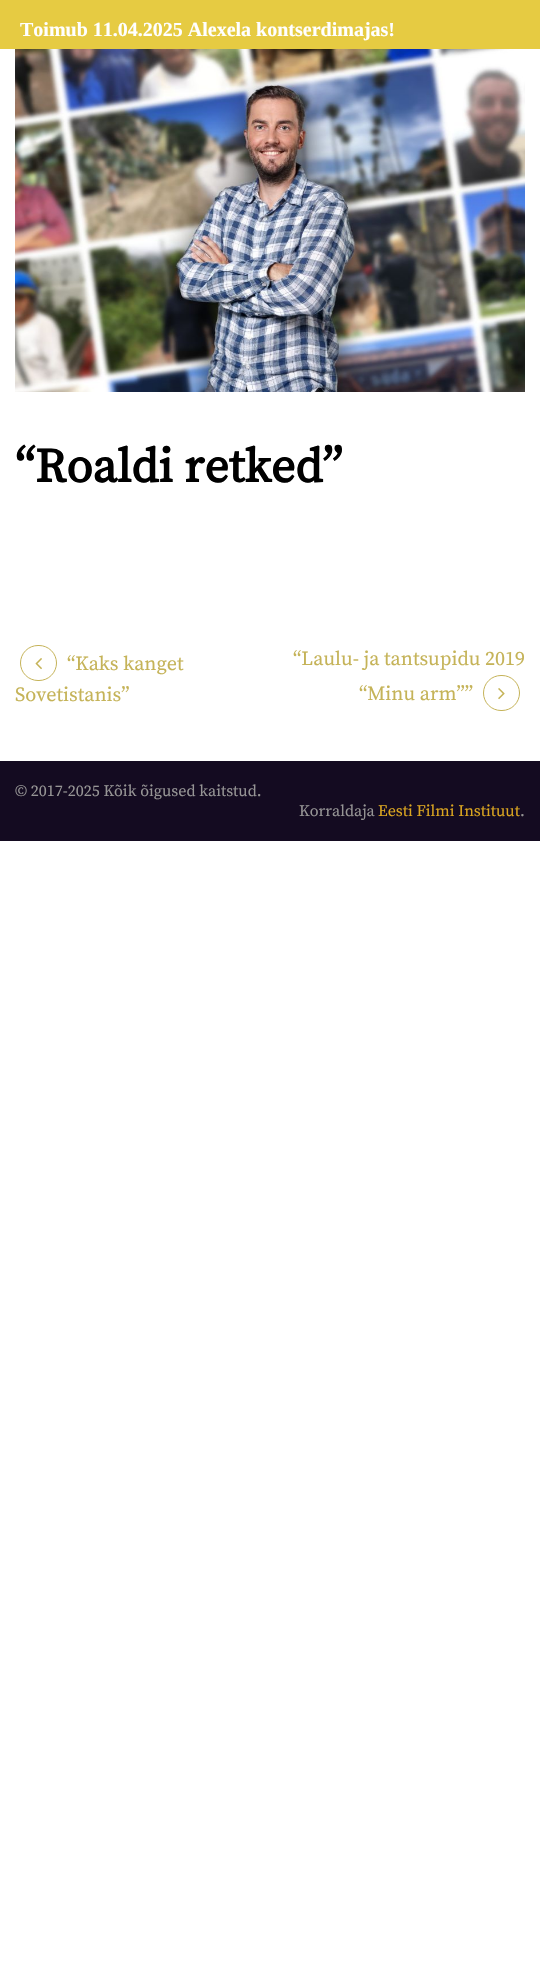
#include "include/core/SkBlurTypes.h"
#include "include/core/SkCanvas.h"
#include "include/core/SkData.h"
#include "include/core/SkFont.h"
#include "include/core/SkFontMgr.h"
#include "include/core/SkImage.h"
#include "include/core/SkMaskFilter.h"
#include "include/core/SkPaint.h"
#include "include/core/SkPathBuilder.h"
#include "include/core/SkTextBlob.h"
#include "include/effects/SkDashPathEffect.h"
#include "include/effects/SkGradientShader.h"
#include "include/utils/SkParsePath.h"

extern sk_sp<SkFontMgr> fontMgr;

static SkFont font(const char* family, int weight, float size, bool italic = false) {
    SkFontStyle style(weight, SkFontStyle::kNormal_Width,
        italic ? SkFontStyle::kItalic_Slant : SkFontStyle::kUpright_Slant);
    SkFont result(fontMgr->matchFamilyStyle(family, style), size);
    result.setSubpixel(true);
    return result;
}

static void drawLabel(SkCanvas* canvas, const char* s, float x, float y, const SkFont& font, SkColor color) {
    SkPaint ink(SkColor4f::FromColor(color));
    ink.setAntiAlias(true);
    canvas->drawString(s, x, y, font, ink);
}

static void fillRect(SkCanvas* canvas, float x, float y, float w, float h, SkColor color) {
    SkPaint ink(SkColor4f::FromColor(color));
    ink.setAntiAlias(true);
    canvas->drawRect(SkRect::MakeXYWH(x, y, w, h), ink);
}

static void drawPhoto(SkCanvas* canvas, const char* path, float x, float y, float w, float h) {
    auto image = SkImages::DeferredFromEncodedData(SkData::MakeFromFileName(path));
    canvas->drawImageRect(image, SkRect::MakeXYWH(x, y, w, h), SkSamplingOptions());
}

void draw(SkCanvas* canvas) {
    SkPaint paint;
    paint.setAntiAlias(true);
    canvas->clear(0xFFFFFFFF);
    fillRect(canvas, 0, 0, 540, 49, 0xFFE6CB42);
    SkFont font1 = font("Liberation Serif", 700, 20);
    drawLabel(canvas, "Toimub 11.04.2025 Alexela kontserdimajas!", 20, 36, font1, 0xFFFFFFFF);
    drawPhoto(canvas, "assets/img1.png", 15, 49, 510, 343);
    SkFont font2 = font("Source Serif Pro", 700, 48);
    drawLabel(canvas, "“Roaldi retked”", 15, 482, font2, 0xFF000000);
    paint.setStroke(true);
    paint.setStrokeWidth(1);
    paint.setColor(0xFFC5B358);
    canvas->drawRoundRect(SkRect::MakeXYWH(20.5f, 645.5f, 36, 35), 17.5f, 17.5f, paint);
    drawPhoto(canvas, "assets/img2.png", 35, 658, 7, 12);
    SkFont font3 = font("Source Serif Pro", 400, 20);
    drawLabel(canvas, "“Kaks kanget", 67, 670, font3, 0xFFC5B358);
    drawLabel(canvas, "Sovetistanis”", 15, 701, font3, 0xFFC5B358);
    drawLabel(canvas, "“Laulu- ja tantsupidu 2019", 293, 665, font3, 0xFFC5B358);
    drawLabel(canvas, "“Minu arm””", 359, 700, font3, 0xFFC5B358);
    canvas->drawRoundRect(SkRect::MakeXYWH(483.5f, 675.5f, 36, 35), 17.5f, 17.5f, paint);
    drawPhoto(canvas, "assets/img3.png", 498, 688, 7, 12);
    fillRect(canvas, 0, 761, 540, 80, 0xFF140B21);
    SkFont font4 = font("Source Serif Pro", 400, 16);
    drawLabel(canvas, "© 2017-2025 Kõik õigused kaitstud.", 15, 796, font4, 0xFF969595);
    drawLabel(canvas, "Korraldaja", 299, 816, font4, 0xFF969595);
    drawLabel(canvas, "Eesti Filmi Instituut", 378, 816, font4, 0xFFDAA520);
    drawLabel(canvas, ".", 520, 816, font4, 0xFF969595);
}
